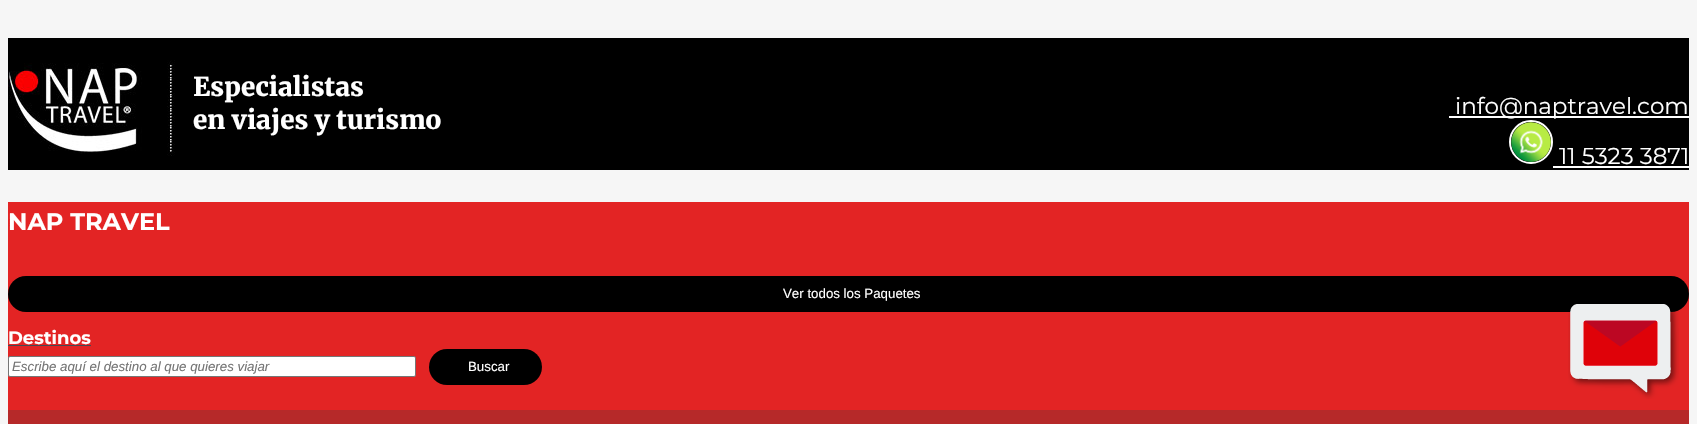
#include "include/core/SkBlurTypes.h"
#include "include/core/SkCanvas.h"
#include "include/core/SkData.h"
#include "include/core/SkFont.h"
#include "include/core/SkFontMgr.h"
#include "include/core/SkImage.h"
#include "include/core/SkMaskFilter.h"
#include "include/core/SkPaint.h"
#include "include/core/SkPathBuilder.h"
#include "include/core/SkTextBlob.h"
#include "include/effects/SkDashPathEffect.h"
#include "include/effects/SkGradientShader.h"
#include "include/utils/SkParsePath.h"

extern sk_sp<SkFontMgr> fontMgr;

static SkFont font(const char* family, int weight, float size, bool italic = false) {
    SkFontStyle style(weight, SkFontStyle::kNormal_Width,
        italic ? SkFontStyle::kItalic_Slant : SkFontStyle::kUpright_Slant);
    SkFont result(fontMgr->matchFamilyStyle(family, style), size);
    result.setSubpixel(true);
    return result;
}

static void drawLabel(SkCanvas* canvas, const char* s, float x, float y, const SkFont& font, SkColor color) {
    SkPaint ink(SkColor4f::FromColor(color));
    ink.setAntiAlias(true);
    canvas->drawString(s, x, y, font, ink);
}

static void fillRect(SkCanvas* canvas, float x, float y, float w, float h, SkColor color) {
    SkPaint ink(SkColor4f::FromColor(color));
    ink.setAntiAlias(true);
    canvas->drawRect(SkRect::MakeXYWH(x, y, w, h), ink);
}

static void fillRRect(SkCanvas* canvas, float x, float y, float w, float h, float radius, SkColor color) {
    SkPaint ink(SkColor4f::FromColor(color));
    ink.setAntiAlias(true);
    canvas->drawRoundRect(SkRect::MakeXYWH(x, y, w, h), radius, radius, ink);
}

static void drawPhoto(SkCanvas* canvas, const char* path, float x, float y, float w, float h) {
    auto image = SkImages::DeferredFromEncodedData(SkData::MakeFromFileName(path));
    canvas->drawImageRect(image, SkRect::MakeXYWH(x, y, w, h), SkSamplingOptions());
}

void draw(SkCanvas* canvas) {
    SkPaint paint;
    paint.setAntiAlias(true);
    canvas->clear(0xFFF6F6F6);
    fillRect(canvas, 8, 38, 1681, 132, 0xFF000000);
    drawPhoto(canvas, "assets/img1.png", 8, 63, 134, 91);
    drawPhoto(canvas, "assets/img2.png", 167, 60, 8, 96);
    SkFont font1 = font("Merriweather", 300, 26);
    drawLabel(canvas, "Especialistas", 193, 96, font1, 0xFFFFFFFF);
    drawLabel(canvas, "en viajes y turismo", 193, 129, font1, 0xFFFFFFFF);
    fillRect(canvas, 1449, 116, 240, 2, 0xFFFFFFFF);
    SkFont font2 = font("Montserrat", 400, 23);
    drawLabel(canvas, "info@naptravel.com", 1455, 114, font2, 0xFFFFFFFF);
    paint.setStroke(true);
    paint.setStrokeWidth(2);
    paint.setColor(0xFFFFFFFF);
    canvas->drawCircle(1531, 142, 21, paint);
    drawPhoto(canvas, "assets/img3.png", 1511, 122, 40, 40);
    drawLabel(canvas, "11 5323 3871", 1559, 164, font2, 0xFFFFFFFF);
    fillRect(canvas, 1553, 166, 136, 2, 0xFFFFFFFF);
    fillRect(canvas, 8, 202, 1681, 208, 0xFFE32424);
    SkFont font3 = font("Montserrat", 700, 24);
    drawLabel(canvas, "NAP TRAVEL", 8, 230, font3, 0xFFFFFFFF);
    fillRRect(canvas, 8, 276, 1681, 36, 18, 0xFF000000);
    SkFont font4 = font("Liberation Sans", 400, 13.3f);
    drawLabel(canvas, "Ver todos los Paquetes", 783, 298, font4, 0xFFFFFFFF);
    SkFont font5 = font("Montserrat", 700, 18);
    drawLabel(canvas, "Destinos", 8, 344, font5, 0xFFFFFFFF);
    fillRect(canvas, 8, 345, 83, 1, 0xFF434A54);
    paint.setStroke(false);
    canvas->drawRoundRect(SkRect::MakeXYWH(8.5f, 356.5f, 407, 20), 1.5f, 1.5f, paint);
    paint.setStroke(true);
    paint.setStrokeWidth(1);
    paint.setColor(0xFF767676);
    canvas->drawRoundRect(SkRect::MakeXYWH(8.5f, 356.5f, 407, 20), 1.5f, 1.5f, paint);
    SkFont font6 = font("Liberation Sans", 400, 13.3f, true);
    drawLabel(canvas, "Escribe aquí el destino al que quieres viajar", 12, 371, font6, 0xFF757575);
    fillRRect(canvas, 429, 349, 113, 36, 18, 0xFF000000);
    drawLabel(canvas, "Buscar", 468, 371, font4, 0xFFFFFFFF);
    fillRect(canvas, 8, 410, 1681, 14, 0xFFB62929);
    drawPhoto(canvas, "assets/img4.png", 1568, 304, 111, 95);
}
